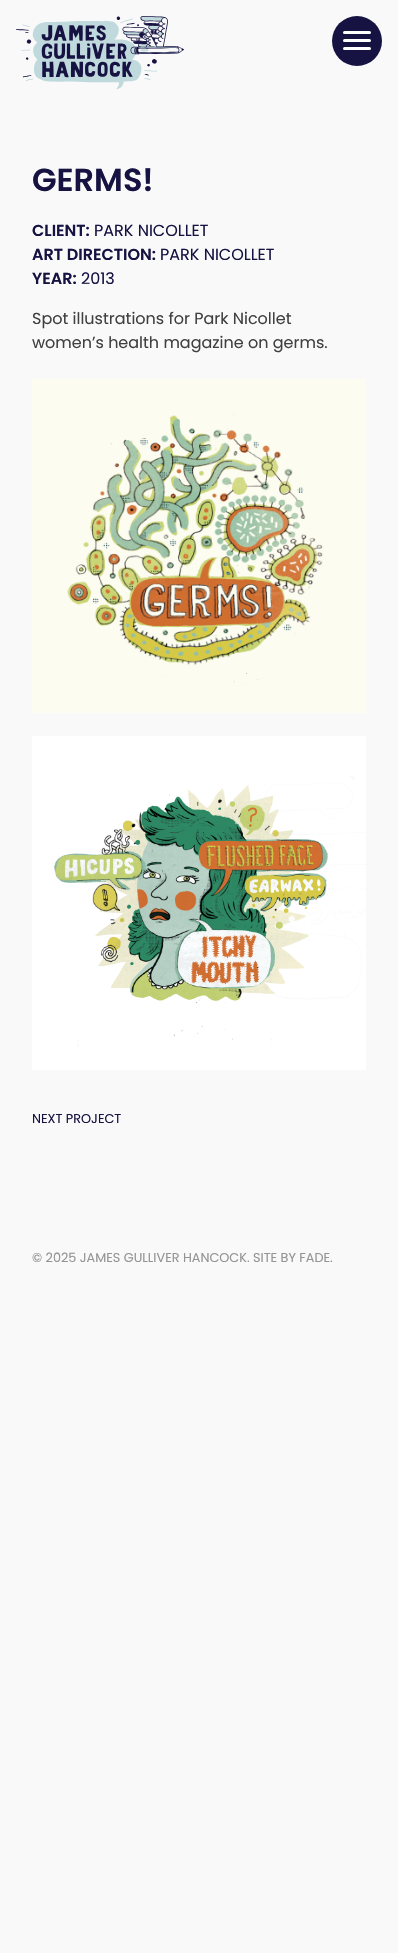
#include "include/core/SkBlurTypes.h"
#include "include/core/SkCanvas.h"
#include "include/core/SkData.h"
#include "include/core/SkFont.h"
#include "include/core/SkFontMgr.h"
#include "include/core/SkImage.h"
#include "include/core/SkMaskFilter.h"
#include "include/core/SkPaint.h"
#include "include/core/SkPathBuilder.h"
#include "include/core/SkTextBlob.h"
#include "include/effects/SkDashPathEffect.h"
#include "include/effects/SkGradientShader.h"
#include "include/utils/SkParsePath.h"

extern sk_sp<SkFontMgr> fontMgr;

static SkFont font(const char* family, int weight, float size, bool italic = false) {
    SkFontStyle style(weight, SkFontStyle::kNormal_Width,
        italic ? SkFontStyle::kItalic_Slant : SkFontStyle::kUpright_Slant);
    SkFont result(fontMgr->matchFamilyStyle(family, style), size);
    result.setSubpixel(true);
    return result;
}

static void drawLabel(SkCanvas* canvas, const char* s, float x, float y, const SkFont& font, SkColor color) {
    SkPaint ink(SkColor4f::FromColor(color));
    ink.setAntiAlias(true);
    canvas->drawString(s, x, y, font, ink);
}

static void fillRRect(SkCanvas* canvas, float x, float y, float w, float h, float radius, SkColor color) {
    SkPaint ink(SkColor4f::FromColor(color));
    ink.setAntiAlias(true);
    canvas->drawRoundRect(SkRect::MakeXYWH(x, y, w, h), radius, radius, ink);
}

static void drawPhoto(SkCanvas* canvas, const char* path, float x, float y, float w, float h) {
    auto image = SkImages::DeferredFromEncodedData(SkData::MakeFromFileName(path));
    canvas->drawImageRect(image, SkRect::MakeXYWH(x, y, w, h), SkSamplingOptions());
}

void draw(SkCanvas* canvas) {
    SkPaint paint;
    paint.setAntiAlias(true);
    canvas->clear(0xFFF9F9F9);
    drawPhoto(canvas, "assets/img1.png", 16, 16, 168, 73);
    paint.setColor(0xFF161342);
    canvas->drawCircle(357, 41, 25, paint);
    fillRRect(canvas, 343, 39, 28, 3, 1.5f, 0xFFFFFFFF);
    fillRRect(canvas, 343, 31, 28, 3, 1.5f, 0xFFFFFFFF);
    fillRRect(canvas, 343, 47, 28, 3, 1.5f, 0xFFFFFFFF);
    SkFont font1 = font("Poppins", 600, 32);
    drawLabel(canvas, "GERMS!", 32, 191, font1, 0xFF161342);
    SkFont font2 = font("Poppins", 600, 16);
    drawLabel(canvas, "CLIENT:", 32, 236, font2, 0xFF161342);
    SkFont font3 = font("Poppins", 400, 16);
    drawLabel(canvas, "PARK NICOLLET", 94, 236, font3, 0xFF161342);
    drawLabel(canvas, "ART DIRECTION:", 32, 260, font2, 0xFF161342);
    drawLabel(canvas, "PARK NICOLLET", 160, 260, font3, 0xFF161342);
    drawLabel(canvas, "YEAR:", 32, 284, font2, 0xFF161342);
    drawLabel(canvas, "2013", 81, 284, font3, 0xFF161342);
    drawLabel(canvas, "Spot illustrations for Park Nicollet", 32, 324, font3, 0xFF404040);
    drawLabel(canvas, "women’s health magazine on germs.", 32, 348, font3, 0xFF404040);
    drawPhoto(canvas, "assets/img2.png", 32, 379, 334, 334);
    drawPhoto(canvas, "assets/img3.png", 32, 736, 334, 334);
    SkFont font4 = font("Poppins", 400, 12.8f);
    drawLabel(canvas, "NEXT PROJECT", 32, 1123, font4, 0xFF161342);
    drawLabel(canvas, "© 2025 JAMES GULLIVER HANCOCK. SITE BY FADE.", 32, 1262, font4, 0xFF949494);
}
